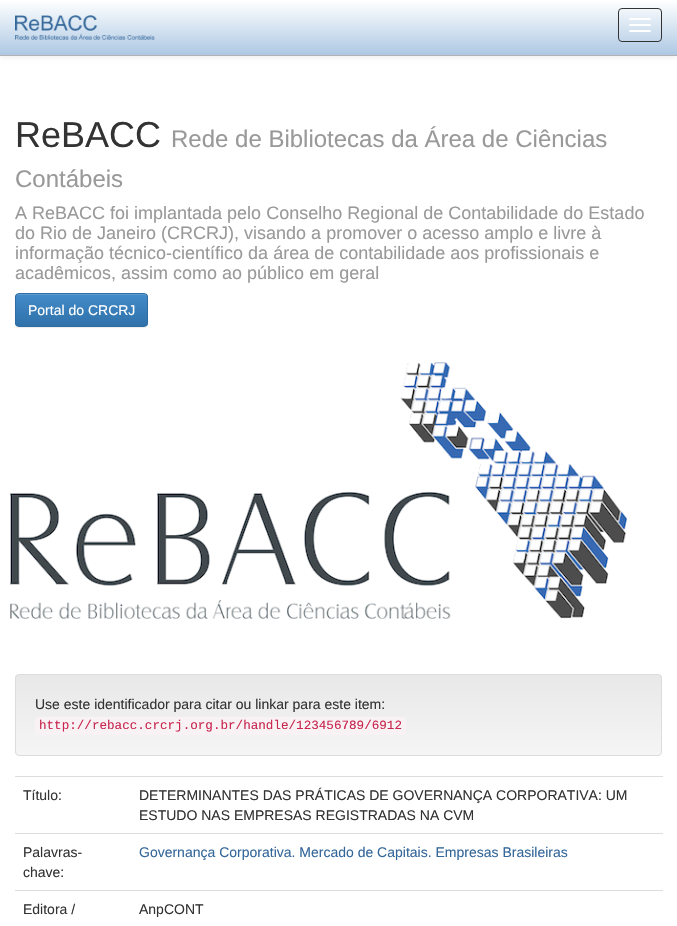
#include "include/core/SkBlurTypes.h"
#include "include/core/SkCanvas.h"
#include "include/core/SkData.h"
#include "include/core/SkFont.h"
#include "include/core/SkFontMgr.h"
#include "include/core/SkImage.h"
#include "include/core/SkMaskFilter.h"
#include "include/core/SkPaint.h"
#include "include/core/SkPathBuilder.h"
#include "include/core/SkTextBlob.h"
#include "include/effects/SkDashPathEffect.h"
#include "include/effects/SkGradientShader.h"
#include "include/utils/SkParsePath.h"

extern sk_sp<SkFontMgr> fontMgr;

static SkFont font(const char* family, int weight, float size, bool italic = false) {
    SkFontStyle style(weight, SkFontStyle::kNormal_Width,
        italic ? SkFontStyle::kItalic_Slant : SkFontStyle::kUpright_Slant);
    SkFont result(fontMgr->matchFamilyStyle(family, style), size);
    result.setSubpixel(true);
    return result;
}

static void drawLabel(SkCanvas* canvas, const char* s, float x, float y, const SkFont& font, SkColor color) {
    SkPaint ink(SkColor4f::FromColor(color));
    ink.setAntiAlias(true);
    canvas->drawString(s, x, y, font, ink);
}

static void fillRect(SkCanvas* canvas, float x, float y, float w, float h, SkColor color) {
    SkPaint ink(SkColor4f::FromColor(color));
    ink.setAntiAlias(true);
    canvas->drawRect(SkRect::MakeXYWH(x, y, w, h), ink);
}

static void fillRRect(SkCanvas* canvas, float x, float y, float w, float h, float radius, SkColor color) {
    SkPaint ink(SkColor4f::FromColor(color));
    ink.setAntiAlias(true);
    canvas->drawRoundRect(SkRect::MakeXYWH(x, y, w, h), radius, radius, ink);
}

static void drawPhoto(SkCanvas* canvas, const char* path, float x, float y, float w, float h) {
    auto image = SkImages::DeferredFromEncodedData(SkData::MakeFromFileName(path));
    canvas->drawImageRect(image, SkRect::MakeXYWH(x, y, w, h), SkSamplingOptions());
}

static SkPath parsePath(const char* data, bool evenOdd = false) {
    SkPath result = *SkParsePath::FromSVGString(data);
    if (evenOdd) result.setFillType(SkPathFillType::kEvenOdd);
    return result;
}

void draw(SkCanvas* canvas) {
    SkPaint paint;
    paint.setAntiAlias(true);
    canvas->clear(0xFFFFFFFF);
    paint.setColor(0x12000000);
    paint.setMaskFilter(SkMaskFilter::MakeBlur(kNormal_SkBlurStyle, 2.5f));
    canvas->drawRect(SkRect::MakeXYWH(0, 1, 677, 56), paint);
    paint.setMaskFilter(nullptr);
    {
        const SkColor colors[] = {0xFFFFFFFF, 0xFFAEC9E4};
        const float stops[] = {0, 1};
        const SkPoint ends[] = {{339, 0}, {339, 55}};
        paint.setShader(SkGradientShader::MakeLinear(ends, colors, stops, 2, SkTileMode::kClamp));
        paint.setAlpha(255);
    }
    canvas->drawRect(SkRect::MakeXYWH(0, 0, 677, 55), paint);
    fillRect(canvas, 0, 55, 677, 1, 0xFFB2B2B2);
    drawPhoto(canvas, "assets/img1.png", 15, 15, 140, 25);
    paint.setStroke(true);
    paint.setStrokeWidth(1);
    paint.setShader(nullptr);
    paint.setColor(0xFF333333);
    canvas->drawRoundRect(SkRect::MakeXYWH(618.5f, 8.5f, 43, 33), 3.5f, 3.5f, paint);
    fillRRect(canvas, 629, 18, 22, 2, 1, 0xFFFFFFFF);
    fillRRect(canvas, 629, 24, 22, 2, 1, 0xFFFFFFFF);
    fillRRect(canvas, 629, 30, 22, 2, 1, 0xFFFFFFFF);
    SkFont font1 = font("Liberation Sans", 400, 36);
    drawLabel(canvas, "ReBACC", 15, 147, font1, 0xFF333333);
    SkFont font2 = font("Liberation Sans", 400, 24);
    drawLabel(canvas, "Rede de Bibliotecas da Área de Ciências", 171, 147, font2, 0xFF999999);
    drawLabel(canvas, "Contábeis", 15, 187, font2, 0xFF999999);
    SkFont font3 = font("Liberation Sans", 400, 18);
    drawLabel(canvas, "A ReBACC foi implantada pelo Conselho Regional de Contabilidade do Estado", 15, 219, font3, 0xFF999999);
    drawLabel(canvas, "do Rio de Janeiro (CRCRJ), visando a promover o acesso amplo e livre à", 15, 239, font3, 0xFF999999);
    drawLabel(canvas, "informação técnico-científico da área de contabilidade aos profissionais e", 15, 259, font3, 0xFF999999);
    drawLabel(canvas, "acadêmicos, assim como ao público em geral", 15, 279, font3, 0xFF999999);
    paint.setStroke(false);
    paint.setColor(0x12000000);
    paint.setMaskFilter(SkMaskFilter::MakeBlur(kNormal_SkBlurStyle, 0.5f));
    canvas->drawRoundRect(SkRect::MakeXYWH(15, 294, 133, 34), 4, 4, paint);
    paint.setMaskFilter(nullptr);
    canvas->save();
    canvas->clipPath(parsePath("M19 293H144C146 293 148 295 148 297V323C148 325 146 327 144 327H19C17 327 15 325 15 323V297C15 295 17 293 19 293Z"), true);
    {
        const SkColor colors[] = {0xFF428BCA, 0xFF3071A9};
        const float stops[] = {0, 1};
        const SkPoint ends[] = {{82, 294}, {82, 326}};
        paint.setShader(SkGradientShader::MakeLinear(ends, colors, stops, 2, SkTileMode::kClamp));
        paint.setAlpha(255);
    }
    canvas->drawRect(SkRect::MakeXYWH(15, 294, 133, 32), paint);
    canvas->restore();
    paint.setShader(nullptr);
    paint.setColor(0xFF5E9CD1);
    canvas->drawPath(parsePath("M19 295H144C146 295 147 296 147 298C147 296 147 294 145 294H18C16 294 16 296 16 298C16 296 17 295 19 295Z"), paint);
    paint.setStroke(true);
    paint.setColor(0xFF2D6CA2);
    canvas->drawRoundRect(SkRect::MakeXYWH(15.5f, 293.5f, 132, 33), 3.5f, 3.5f, paint);
    SkFont font4 = font("Liberation Sans", 400, 14);
    drawLabel(canvas, "Portal do CRCRJ", 28, 315, font4, 0xFFFFFFFF);
    drawPhoto(canvas, "assets/img2.png", 10, 362, 617, 257);
    canvas->save();
    canvas->clipPath(parsePath("M19 674H658C660 674 662 676 662 678V752C662 754 660 756 658 756H19C17 756 15 754 15 752V678C15 676 17 674 19 674Z"), true);
    paint.setStroke(false);
    {
        const SkColor colors[] = {0xFFE8E8E8, 0xFFF5F5F5};
        const float stops[] = {0, 1};
        const SkPoint ends[] = {{339, 675}, {339, 755}};
        paint.setShader(SkGradientShader::MakeLinear(ends, colors, stops, 2, SkTileMode::kClamp));
        paint.setAlpha(255);
    }
    canvas->drawRect(SkRect::MakeXYWH(15, 675, 647, 80), paint);
    canvas->restore();
    paint.setStroke(true);
    paint.setShader(nullptr);
    paint.setColor(0xFFDCDCDC);
    canvas->drawRoundRect(SkRect::MakeXYWH(15.5f, 674.5f, 646, 81), 3.5f, 3.5f, paint);
    drawLabel(canvas, "Use este identificador para citar ou linkar para este item:", 35, 709, font4, 0xFF333333);
    fillRRect(canvas, 35, 717, 371, 18, 4, 0xFFF9F2F4);
    SkFont font5 = font("Liberation Mono", 400, 12.6f);
    drawLabel(canvas, "http://rebacc.crcrj.org.br/handle/123456789/6912", 39, 729, font5, 0xFFC7254E);
    drawLabel(canvas, "Título:", 23, 800, font4, 0xFF333333);
    fillRect(canvas, 15, 776, 648, 1, 0xFFDDDDDD);
    drawLabel(canvas, "DETERMINANTES DAS PRÁTICAS DE GOVERNANÇA CORPORATIVA: UM", 139, 800, font4, 0xFF333333);
    drawLabel(canvas, "ESTUDO NAS EMPRESAS REGISTRADAS NA CVM", 139, 820, font4, 0xFF333333);
    drawLabel(canvas, "Palavras-", 23, 857, font4, 0xFF333333);
    drawLabel(canvas, "chave:", 23, 877, font4, 0xFF333333);
    fillRect(canvas, 15, 833, 648, 1, 0xFFDDDDDD);
    drawLabel(canvas, "Governança Corporativa. Mercado de Capitais. Empresas Brasileiras", 139, 857, font4, 0xFF336699);
    drawLabel(canvas, "Editora /", 23, 914, font4, 0xFF333333);
    fillRect(canvas, 15, 890, 648, 1, 0xFFDDDDDD);
    drawLabel(canvas, "AnpCONT", 139, 914, font4, 0xFF333333);
}
